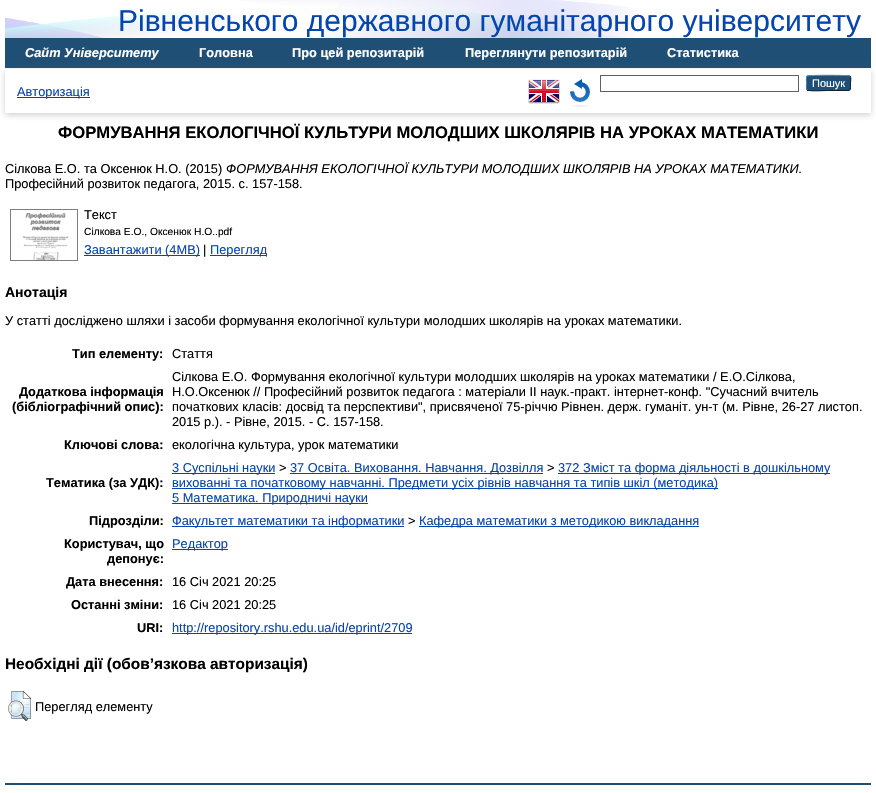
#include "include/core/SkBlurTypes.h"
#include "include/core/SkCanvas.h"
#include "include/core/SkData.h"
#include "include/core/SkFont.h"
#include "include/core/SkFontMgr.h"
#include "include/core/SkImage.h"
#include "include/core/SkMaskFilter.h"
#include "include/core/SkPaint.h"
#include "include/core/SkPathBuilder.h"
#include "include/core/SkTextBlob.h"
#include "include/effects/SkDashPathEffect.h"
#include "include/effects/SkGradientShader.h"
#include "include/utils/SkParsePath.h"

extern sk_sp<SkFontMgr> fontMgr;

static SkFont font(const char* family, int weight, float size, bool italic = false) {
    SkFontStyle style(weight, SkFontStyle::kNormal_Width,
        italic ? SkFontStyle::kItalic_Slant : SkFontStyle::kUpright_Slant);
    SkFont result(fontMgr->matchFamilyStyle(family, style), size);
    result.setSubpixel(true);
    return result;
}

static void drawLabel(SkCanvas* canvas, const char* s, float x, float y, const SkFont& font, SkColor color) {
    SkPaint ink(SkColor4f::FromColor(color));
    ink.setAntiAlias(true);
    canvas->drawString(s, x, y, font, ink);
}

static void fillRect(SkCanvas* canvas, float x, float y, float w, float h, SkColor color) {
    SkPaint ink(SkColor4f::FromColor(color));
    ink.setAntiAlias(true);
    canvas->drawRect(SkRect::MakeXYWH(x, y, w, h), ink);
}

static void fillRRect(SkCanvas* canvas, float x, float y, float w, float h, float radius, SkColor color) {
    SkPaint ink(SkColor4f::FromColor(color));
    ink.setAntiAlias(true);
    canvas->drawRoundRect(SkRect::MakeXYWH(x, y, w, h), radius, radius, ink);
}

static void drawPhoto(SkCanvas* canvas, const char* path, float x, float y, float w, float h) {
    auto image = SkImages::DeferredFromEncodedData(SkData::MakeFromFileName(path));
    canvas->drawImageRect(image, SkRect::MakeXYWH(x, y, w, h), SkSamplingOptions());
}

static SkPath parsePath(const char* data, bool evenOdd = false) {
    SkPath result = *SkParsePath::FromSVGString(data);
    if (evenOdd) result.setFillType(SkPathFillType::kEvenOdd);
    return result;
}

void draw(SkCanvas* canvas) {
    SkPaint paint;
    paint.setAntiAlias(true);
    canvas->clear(0xFFFFFFFF);
    drawPhoto(canvas, "assets/img1.png", 5, 0, 630, 38);
    SkFont font1 = font("Liberation Sans", 400, 30);
    drawLabel(canvas, "Рівненського державного гуманітарного університету", 118, 31, font1, 0xFF0645AD);
    fillRect(canvas, 5, 38, 866, 30, 0xFF204F76);
    SkFont font2 = font("Liberation Sans", 700, 12.8f, true);
    drawLabel(canvas, "Сайт Університету", 25, 57, font2, 0xFFFFFFFF);
    SkFont font3 = font("Liberation Sans", 700, 12.8f);
    drawLabel(canvas, "Головна", 199, 57, font3, 0xFFFFFFFF);
    drawLabel(canvas, "Про цей репозитарій", 292, 57, font3, 0xFFFFFFFF);
    drawLabel(canvas, "Переглянути репозитарій", 465, 57, font3, 0xFFFFFFFF);
    drawLabel(canvas, "Статистика", 667, 57, font3, 0xFFFFFFFF);
    paint.setColor(0x4D646464);
    paint.setMaskFilter(SkMaskFilter::MakeBlur(kNormal_SkBlurStyle, 3));
    canvas->drawRect(SkRect::MakeXYWH(5, 71, 866, 44), paint);
    paint.setMaskFilter(nullptr);
    fillRect(canvas, 5, 69, 866, 44, 0xFFFFFFFF);
    drawPhoto(canvas, "assets/img2.png", 528, 79, 32, 25);
    drawPhoto(canvas, "assets/img3.png", 570, 79, 20, 28);
    paint.setStroke(true);
    paint.setStrokeWidth(1);
    paint.setColor(0xFF606060);
    canvas->drawRect(SkRect::MakeXYWH(600.5f, 75.5f, 198, 16), paint);
    fillRRect(canvas, 806, 75, 45, 16, 3, 0xFF1F4F76);
    paint.setColor(0xFF5B97C7);
    canvas->drawPath(parsePath("M807 76C808.5 75 848.5 75 850 76"), paint);
    paint.setColor(0xFF0D2131);
    canvas->drawPath(parsePath("M850 76C851.5 78 850.5 81 850.5 83C850.5 91.5 851 90.5 841.5 90.5H828.5C825.5 90.5 809 91.5 807 90"), paint);
    paint.setColor(0xFF5287B3);
    canvas->drawPath(parsePath("M807 90C806 88.5 806.5 84.5 806.5 83C806.5 81.5 806 77.5 807 76"), paint);
    SkFont font4 = font("Liberation Sans", 400, 11);
    drawLabel(canvas, "Пошук", 812, 87, font4, 0xFFFFFFFF);
    fillRect(canvas, 17, 97, 73, 1, 0xFF0645AD);
    SkFont font5 = font("Liberation Sans", 400, 12.8f);
    drawLabel(canvas, "Авторизація", 17, 96, font5, 0xFF0645AD);
    SkFont font6 = font("Liberation Sans", 700, 16.65f);
    drawLabel(canvas, "ФОРМУВАННЯ ЕКОЛОГІЧНОЇ КУЛЬТУРИ МОЛОДШИХ ШКОЛЯРІВ НА УРОКАХ МАТЕМАТИКИ", 58, 138, font6, 0xFF000000);
    drawLabel(canvas, "Сілкова Е.О. та Оксенюк Н.О. (2015)", 5, 173, font5, 0xFF000000);
    SkFont font7 = font("Liberation Sans", 400, 12.8f, true);
    drawLabel(canvas, "ФОРМУВАННЯ ЕКОЛОГІЧНОЇ КУЛЬТУРИ МОЛОДШИХ ШКОЛЯРІВ НА УРОКАХ МАТЕМАТИКИ.", 226, 173, font7, 0xFF000000);
    drawLabel(canvas, "Професійний розвиток педагога, 2015. с. 157-158.", 5, 188, font5, 0xFF000000);
    drawPhoto(canvas, "assets/img4.png", 10, 209, 68, 52);
    drawLabel(canvas, "Текст", 84, 219, font5, 0xFF000000);
    SkFont font8 = font("Liberation Sans", 400, 10.25f);
    drawLabel(canvas, "Сілкова Е.О., Оксенюк Н.О..pdf", 84, 235, font8, 0xFF000000);
    fillRect(canvas, 84, 255, 116, 1, 0xFF0645AD);
    drawLabel(canvas, "Завантажити (4MB)", 84, 254, font5, 0xFF0645AD);
    drawLabel(canvas, "|", 203, 254, font5, 0xFF000000);
    fillRect(canvas, 210, 255, 57, 1, 0xFF0645AD);
    drawLabel(canvas, "Перегляд", 210, 254, font5, 0xFF0645AD);
    SkFont font9 = font("Liberation Sans", 700, 14);
    drawLabel(canvas, "Анотація", 5, 297, font9, 0xFF000000);
    drawLabel(canvas, "У статті досліджено шляхи і засоби формування екологічної культури молодших школярів на уроках математики.", 5, 325, font5, 0xFF000000);
    drawLabel(canvas, "Тип елементу:", 72, 358, font3, 0xFF000000);
    drawLabel(canvas, "Стаття", 172, 358, font5, 0xFF000000);
    drawLabel(canvas, "Додаткова інформація", 19, 396, font3, 0xFF000000);
    drawLabel(canvas, "(бібліографічний опис):", 12, 411, font3, 0xFF000000);
    drawLabel(canvas, "Сілкова Е.О. Формування екологічної культури молодших школярів на уроках математики / Е.О.Сілкова,", 172, 381, font5, 0xFF000000);
    drawLabel(canvas, "Н.О.Оксенюк // Професійний розвиток педагога : матеріали ІІ наук.-практ. інтернет-конф. \"Сучасний вчитель", 172, 396, font5, 0xFF000000);
    drawLabel(canvas, "початкових класів: досвід та перспективи\", присвяченої 75-річчю Рівнен. держ. гуманіт. ун-т (м. Рівне, 26-27 листоп.", 172, 411, font5, 0xFF000000);
    drawLabel(canvas, "2015 р.). - Рівне, 2015. - С. 157-158.", 172, 426, font5, 0xFF000000);
    drawLabel(canvas, "Ключові слова:", 64, 449, font3, 0xFF000000);
    drawLabel(canvas, "екологічна культура, урок математики", 172, 449, font5, 0xFF000000);
    drawLabel(canvas, "Тематика (за УДК):", 46, 487, font3, 0xFF000000);
    fillRect(canvas, 172, 473, 103, 1, 0xFF0645AD);
    drawLabel(canvas, "3 Суспільні науки", 172, 472, font5, 0xFF0645AD);
    drawLabel(canvas, ">", 279, 472, font5, 0xFF000000);
    fillRect(canvas, 290, 473, 253, 1, 0xFF0645AD);
    drawLabel(canvas, "37 Освіта. Виховання. Навчання. Дозвілля", 290, 472, font5, 0xFF0645AD);
    drawLabel(canvas, ">", 547, 472, font5, 0xFF000000);
    fillRect(canvas, 558, 473, 272, 1, 0xFF0645AD);
    drawLabel(canvas, "372 Зміст та форма діяльності в дошкільному", 558, 472, font5, 0xFF0645AD);
    fillRect(canvas, 172, 488, 546, 1, 0xFF0645AD);
    drawLabel(canvas, "вихованні та початковому навчанні. Предмети усіх рівнів навчання та типів шкіл (методика)", 172, 487, font5, 0xFF0645AD);
    fillRect(canvas, 172, 503, 196, 1, 0xFF0645AD);
    drawLabel(canvas, "5 Математика. Природничі науки", 172, 502, font5, 0xFF0645AD);
    drawLabel(canvas, "Підрозділи:", 89, 525, font3, 0xFF000000);
    fillRect(canvas, 172, 526, 232, 1, 0xFF0645AD);
    drawLabel(canvas, "Факультет математики та інформатики", 172, 525, font5, 0xFF0645AD);
    drawLabel(canvas, ">", 408, 525, font5, 0xFF000000);
    fillRect(canvas, 419, 526, 280, 1, 0xFF0645AD);
    drawLabel(canvas, "Кафедра математики з методикою викладання", 419, 525, font5, 0xFF0645AD);
    drawLabel(canvas, "Користувач, що", 64, 548, font3, 0xFF000000);
    drawLabel(canvas, "депонує:", 107, 563, font3, 0xFF000000);
    fillRect(canvas, 172, 549, 56, 1, 0xFF0645AD);
    drawLabel(canvas, "Редактор", 172, 548, font5, 0xFF0645AD);
    drawLabel(canvas, "Дата внесення:", 66, 586, font3, 0xFF000000);
    drawLabel(canvas, "16 Січ 2021 20:25", 172, 586, font5, 0xFF000000);
    drawLabel(canvas, "Останні зміни:", 71, 609, font3, 0xFF000000);
    drawLabel(canvas, "16 Січ 2021 20:25", 172, 609, font5, 0xFF000000);
    drawLabel(canvas, "URI:", 137, 632, font3, 0xFF000000);
    fillRect(canvas, 172, 633, 240, 1, 0xFF0645AD);
    drawLabel(canvas, "http://repository.rshu.edu.ua/id/eprint/2709", 172, 632, font5, 0xFF0645AD);
    SkFont font10 = font("Liberation Sans", 700, 15.4f);
    drawLabel(canvas, "Необхідні дії (обов’язкова авторизація)", 5, 669, font10, 0xFF000000);
    drawPhoto(canvas, "assets/img5.png", 8, 691, 23, 30);
    drawLabel(canvas, "Перегляд елементу", 35, 711, font5, 0xFF000000);
    fillRect(canvas, 5, 783, 866, 2, 0xFF204F76);
}
